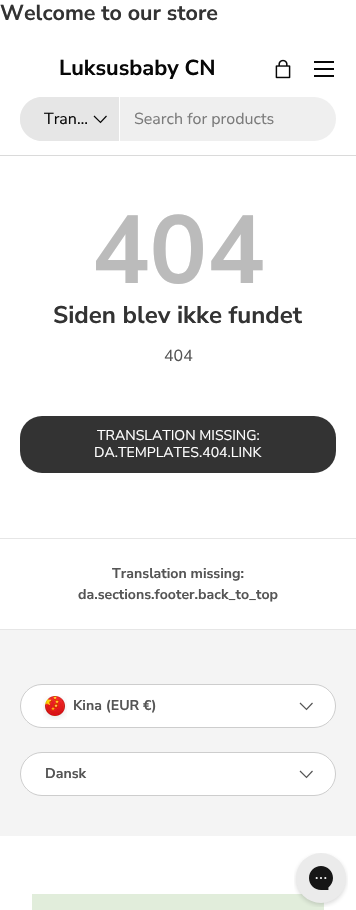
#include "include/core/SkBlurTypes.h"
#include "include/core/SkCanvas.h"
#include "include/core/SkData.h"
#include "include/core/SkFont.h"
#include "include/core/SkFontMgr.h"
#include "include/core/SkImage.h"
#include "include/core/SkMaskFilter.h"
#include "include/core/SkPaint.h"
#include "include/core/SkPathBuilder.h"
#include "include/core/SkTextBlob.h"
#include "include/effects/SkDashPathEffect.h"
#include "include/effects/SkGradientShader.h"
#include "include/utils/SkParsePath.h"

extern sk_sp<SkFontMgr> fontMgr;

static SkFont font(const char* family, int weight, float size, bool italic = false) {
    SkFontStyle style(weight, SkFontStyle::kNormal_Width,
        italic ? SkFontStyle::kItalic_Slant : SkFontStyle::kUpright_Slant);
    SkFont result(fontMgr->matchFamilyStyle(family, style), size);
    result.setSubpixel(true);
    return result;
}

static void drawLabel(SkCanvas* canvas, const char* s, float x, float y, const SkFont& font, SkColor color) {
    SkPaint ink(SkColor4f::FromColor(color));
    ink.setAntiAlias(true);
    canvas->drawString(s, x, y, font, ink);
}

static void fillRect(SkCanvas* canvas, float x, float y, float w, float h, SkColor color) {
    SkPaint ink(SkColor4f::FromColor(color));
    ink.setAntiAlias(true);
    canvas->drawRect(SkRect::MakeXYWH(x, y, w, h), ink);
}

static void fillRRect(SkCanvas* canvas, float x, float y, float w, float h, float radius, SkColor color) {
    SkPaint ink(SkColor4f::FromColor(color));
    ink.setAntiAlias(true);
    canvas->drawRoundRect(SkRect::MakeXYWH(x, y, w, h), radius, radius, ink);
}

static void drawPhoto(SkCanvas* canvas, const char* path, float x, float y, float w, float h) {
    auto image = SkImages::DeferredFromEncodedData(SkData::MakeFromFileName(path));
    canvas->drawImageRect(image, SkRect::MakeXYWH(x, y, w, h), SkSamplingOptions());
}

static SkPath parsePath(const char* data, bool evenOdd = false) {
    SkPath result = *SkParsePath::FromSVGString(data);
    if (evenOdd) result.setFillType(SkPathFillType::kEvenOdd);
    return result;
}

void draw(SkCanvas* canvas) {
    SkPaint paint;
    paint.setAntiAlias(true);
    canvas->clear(0xFFFFFFFF);
    SkFont font1 = font("Nunito Sans", 700, 21.5f);
    drawLabel(canvas, "Welcome to our store", 0, 20, font1, 0xFF333333);
    fillRect(canvas, 0, 155, 356, 1, 0xFFDADADA);
    SkFont font2 = font("Nunito Sans", 700, 21.75f);
    drawLabel(canvas, "Luksusbaby CN", 59, 75, font2, 0xFF070707);
    drawPhoto(canvas, "assets/img1.png", 275, 59, 16, 20);
    fillRect(canvas, 314, 61, 20, 2, 0xFF070707);
    fillRect(canvas, 314, 75, 20, 2, 0xFF070707);
    fillRect(canvas, 314, 68, 20, 2, 0xFF070707);
    fillRRect(canvas, 20, 97, 316, 44, 22, 0xFFEFEFEF);
    paint.setColor(0xFFE6E6E6);
    canvas->drawPath(parsePath("M42 97H120V141H42C30 141 20 131 20 119C20 107 30 97 42 97Z"), paint);
    fillRect(canvas, 119, 97, 1, 44, 0xFFFFFFFF);
    SkFont font3 = font("Nunito Sans", 400, 16);
    drawLabel(canvas, "Tran…", 44, 124, font3, 0xFF070707);
    paint.setStroke(true);
    paint.setStrokeWidth(1.2f);
    paint.setColor(0xFF070707);
    canvas->drawPath(parsePath("M106.5 116L100.5 122.5L94 116"), paint);
    drawLabel(canvas, "Search for products", 134, 124, font3, 0xFF7B7B7B);
    SkFont font4 = font("Nunito Sans", 700, 96);
    drawLabel(canvas, "404", 92, 283, font4, 0xFFBBBBBB);
    SkFont font5 = font("Nunito Sans", 700, 24.1f);
    drawLabel(canvas, "Siden blev ikke fundet", 53, 323, font5, 0xFF333333);
    drawLabel(canvas, "404", 164, 361, font3, 0xFF555555);
    paint.setStroke(false);
    {
        const SkColor colors[] = {0xFF5A5A5A, 0xFF333333, 0xFF333333};
        const float stops[] = {0.6f, 0.6f, 1};
        const SkPoint ends[] = {{-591, 332}, {315, 557}};
        paint.setShader(SkGradientShader::MakeLinear(ends, colors, stops, 3, SkTileMode::kClamp));
        paint.setAlpha(255);
    }
    canvas->drawRoundRect(SkRect::MakeXYWH(20, 416, 316, 57), 22, 22, paint);
    SkFont font6 = font("Nunito Sans", 400, 14.1f);
    drawLabel(canvas, "TRANSLATION MISSING:", 97, 440, font6, 0xFFFFFFFF);
    drawLabel(canvas, "DA.TEMPLATES.404.LINK", 94, 457, font6, 0xFFFFFFFF);
    fillRect(canvas, 0, 538, 356, 1, 0xFFE6E6E6);
    fillRect(canvas, 0, 629, 356, 1, 0xFFE6E6E6);
    SkFont font7 = font("Nunito Sans", 700, 14.1f);
    drawLabel(canvas, "Translation missing:", 112, 578, font7, 0xFF555555);
    drawLabel(canvas, "da.sections.footer.back_to_top", 78, 599, font7, 0xFF555555);
    fillRect(canvas, 0, 630, 356, 206, 0xFFF4F4F4);
    fillRRect(canvas, 20, 684, 316, 44, 22, 0xFFFFFFFF);
    paint.setStroke(true);
    paint.setStrokeWidth(1);
    paint.setShader(nullptr);
    paint.setColor(0x33070707);
    canvas->drawRoundRect(SkRect::MakeXYWH(20.5f, 684.5f, 315, 43), 21.5f, 21.5f, paint);
    drawPhoto(canvas, "assets/img2.png", 43, 696, 24, 24);
    drawLabel(canvas, "Kina (EUR €)", 73, 710, font7, 0xFF555555);
    paint.setStrokeWidth(1.2f);
    paint.setColor(0xFF555555);
    canvas->drawPath(parsePath("M312.5 703L306.5 709.5L300 703"), paint);
    fillRRect(canvas, 20, 752, 316, 44, 22, 0xFFFFFFFF);
    paint.setStrokeWidth(1);
    paint.setColor(0x33070707);
    canvas->drawRoundRect(SkRect::MakeXYWH(20.5f, 752.5f, 315, 43), 21.5f, 21.5f, paint);
    drawLabel(canvas, "Dansk", 45, 778, font7, 0xFF555555);
    paint.setStrokeWidth(1.2f);
    paint.setColor(0xFF555555);
    canvas->drawPath(parsePath("M312.5 771L306.5 777.5L300 771"), paint);
    fillRect(canvas, 32, 894, 292, 16, 0xFFE1EDDB);
    drawPhoto(canvas, "assets/img3.png", 294, 853, 54, 54);
}
